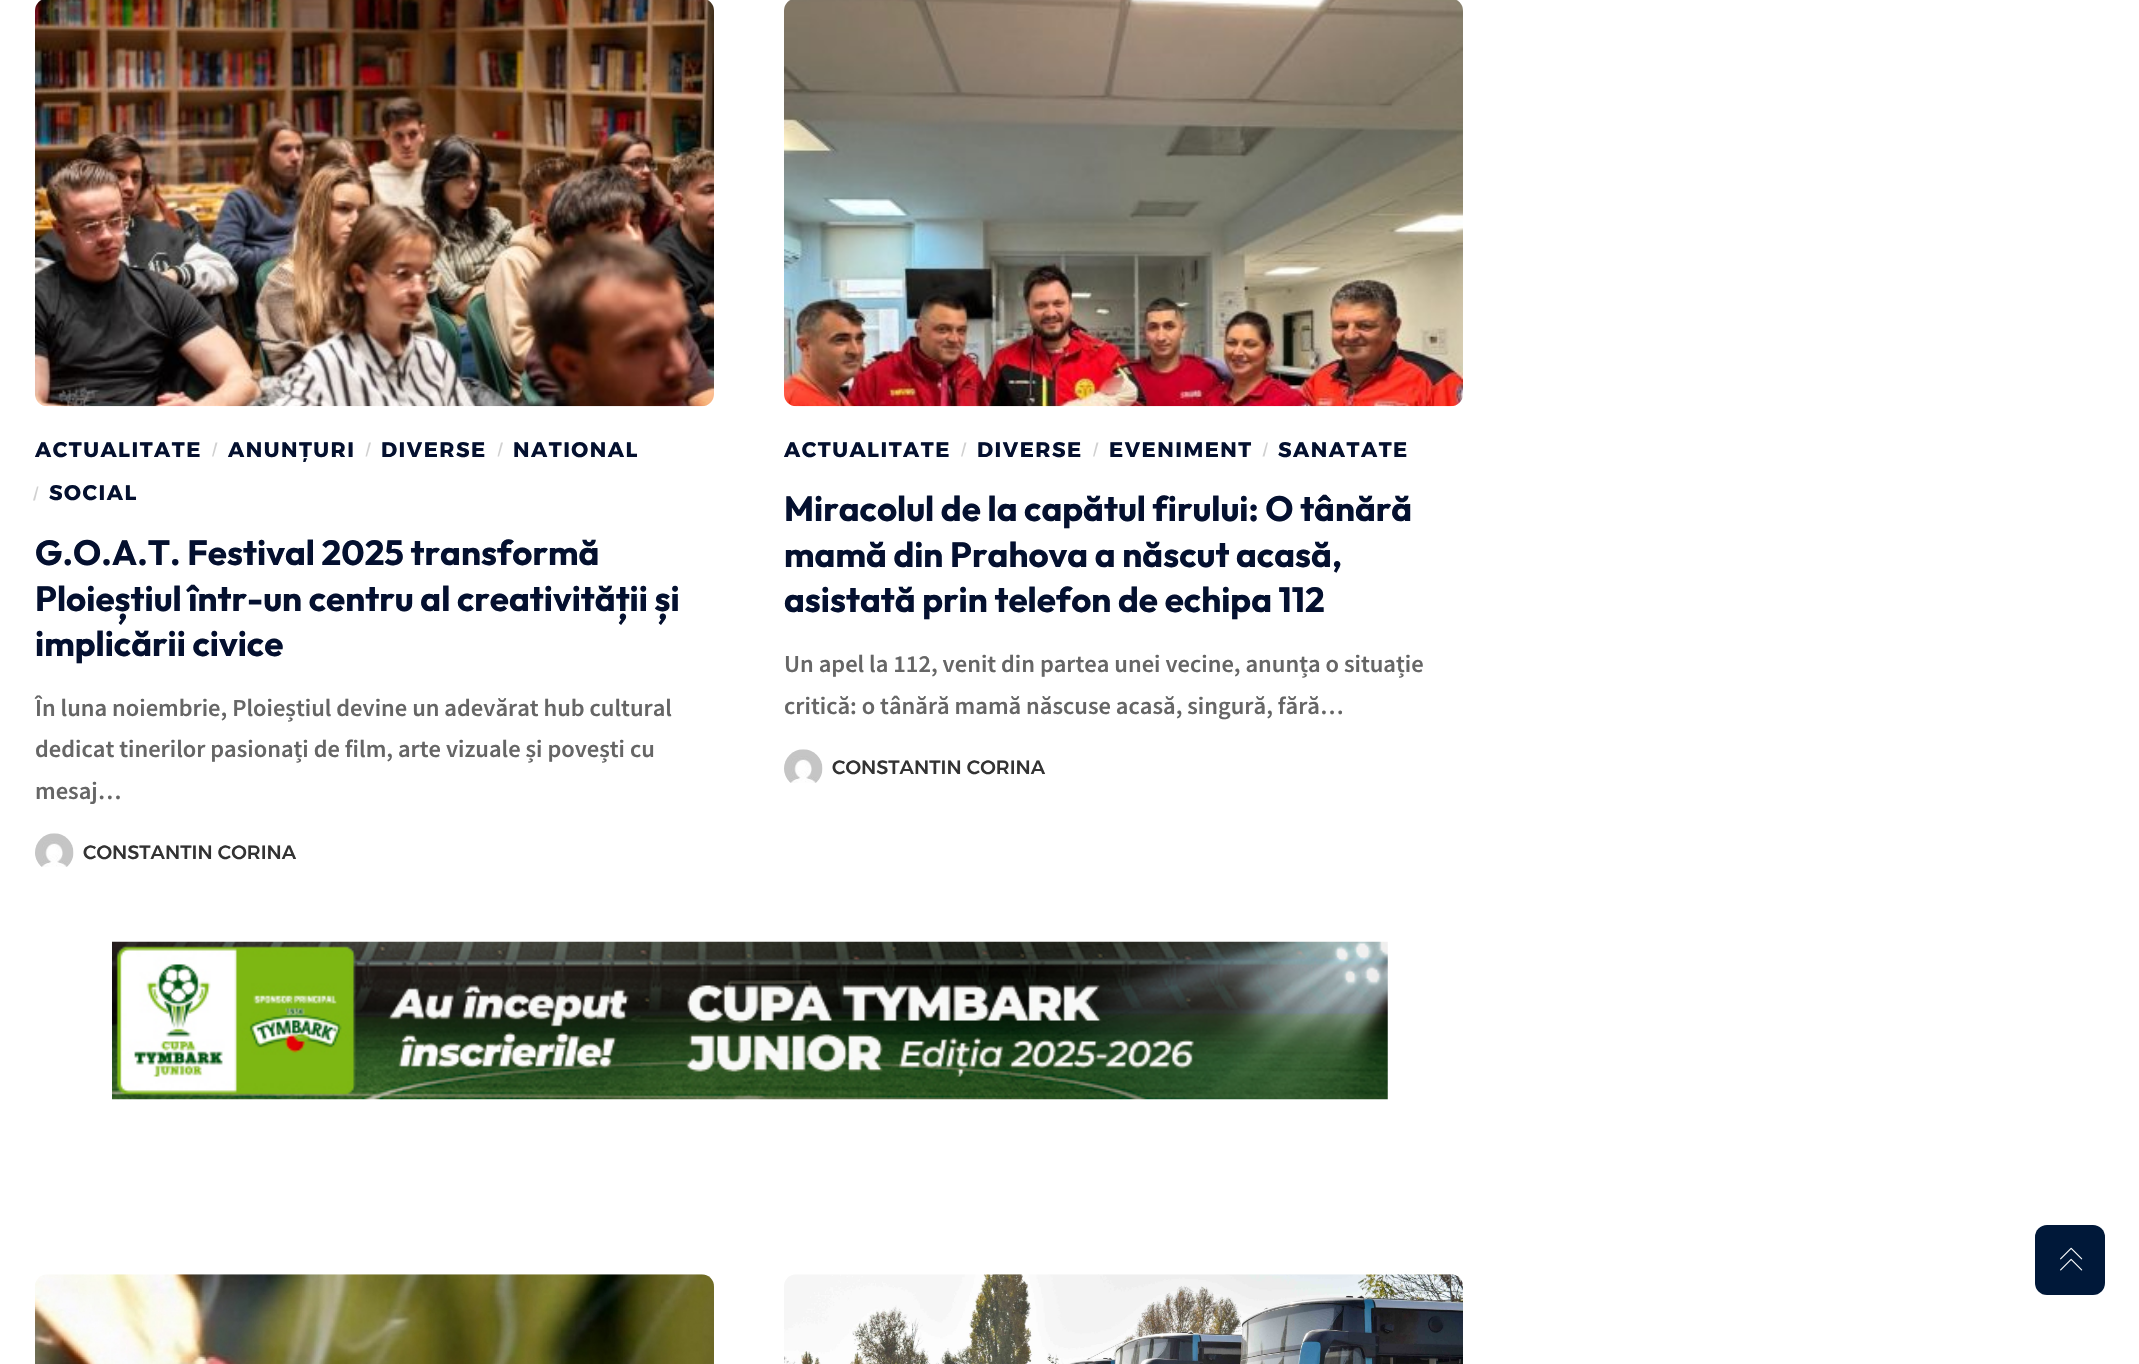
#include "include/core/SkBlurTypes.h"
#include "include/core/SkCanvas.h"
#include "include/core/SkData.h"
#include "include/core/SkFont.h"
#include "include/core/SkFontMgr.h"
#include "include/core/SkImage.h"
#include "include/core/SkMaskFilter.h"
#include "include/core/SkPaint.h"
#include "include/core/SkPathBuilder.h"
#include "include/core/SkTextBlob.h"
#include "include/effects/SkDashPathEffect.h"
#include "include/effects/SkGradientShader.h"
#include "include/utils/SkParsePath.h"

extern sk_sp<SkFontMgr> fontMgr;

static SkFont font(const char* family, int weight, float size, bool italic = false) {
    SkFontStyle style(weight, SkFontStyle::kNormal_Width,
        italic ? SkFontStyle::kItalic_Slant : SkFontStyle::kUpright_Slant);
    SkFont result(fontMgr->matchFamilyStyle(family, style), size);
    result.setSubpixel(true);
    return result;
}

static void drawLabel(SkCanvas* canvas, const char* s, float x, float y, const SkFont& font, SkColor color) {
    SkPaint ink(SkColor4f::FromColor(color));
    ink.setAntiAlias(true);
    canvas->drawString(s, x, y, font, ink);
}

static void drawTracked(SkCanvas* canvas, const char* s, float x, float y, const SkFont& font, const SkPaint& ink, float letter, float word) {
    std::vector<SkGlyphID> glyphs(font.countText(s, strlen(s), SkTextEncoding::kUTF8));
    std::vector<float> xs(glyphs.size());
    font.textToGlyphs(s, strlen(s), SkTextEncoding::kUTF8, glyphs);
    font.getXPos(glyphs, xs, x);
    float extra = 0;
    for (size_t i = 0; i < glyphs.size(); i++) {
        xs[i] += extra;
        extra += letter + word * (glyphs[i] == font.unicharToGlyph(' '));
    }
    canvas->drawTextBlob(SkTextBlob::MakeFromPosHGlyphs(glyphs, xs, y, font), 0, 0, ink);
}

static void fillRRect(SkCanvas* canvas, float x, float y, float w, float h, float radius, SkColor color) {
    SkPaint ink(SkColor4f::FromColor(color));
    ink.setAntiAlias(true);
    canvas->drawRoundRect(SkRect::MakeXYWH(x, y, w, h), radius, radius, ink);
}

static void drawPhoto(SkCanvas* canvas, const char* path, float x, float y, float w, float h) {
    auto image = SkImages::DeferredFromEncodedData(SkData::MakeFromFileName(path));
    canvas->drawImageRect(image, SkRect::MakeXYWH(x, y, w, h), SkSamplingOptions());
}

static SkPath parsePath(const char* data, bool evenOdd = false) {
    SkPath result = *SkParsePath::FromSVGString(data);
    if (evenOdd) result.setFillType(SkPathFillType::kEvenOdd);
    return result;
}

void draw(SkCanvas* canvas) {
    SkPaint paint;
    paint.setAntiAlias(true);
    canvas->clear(0xFFFFFFFF);
    drawPhoto(canvas, "assets/img1.png", 35, 0, 679, 407);
    SkFont font1 = font("Alexandria", 700, 21);
    paint.setColor(0xFF04102F);
    drawTracked(canvas, "ACTUALITATE", 35, 457, font1, paint, 1.5f, 0);
    paint.setColor(0xFFD1D1D1);
    canvas->drawPath(parsePath("M215.5 442.5H217.5L213.5 456.5H212Z"), paint);
    paint.setColor(0xFF04102F);
    drawTracked(canvas, "ANUNȚURI", 228, 457, font1, paint, 1.5f, 0);
    paint.setColor(0xFFD1D1D1);
    canvas->drawPath(parsePath("M369 442.5H371L367 456.5H365.5Z"), paint);
    paint.setColor(0xFF04102F);
    drawTracked(canvas, "DIVERSE", 381, 457, font1, paint, 1.5f, 0);
    paint.setColor(0xFFD1D1D1);
    canvas->drawPath(parsePath("M501 442.5H503L499 456.5H497.5Z"), paint);
    paint.setColor(0xFF04102F);
    drawTracked(canvas, "NATIONAL", 513, 457, font1, paint, 1.5f, 0);
    paint.setColor(0xFFD1D1D1);
    canvas->drawPath(parsePath("M37 486.5H38.5L35 500.5H33Z"), paint);
    paint.setColor(0xFF04102F);
    drawTracked(canvas, "SOCIAL", 49, 500, font1, paint, 1.5f, 0);
    SkFont font2 = font("Outfit", 700, 35);
    drawLabel(canvas, "G.O.A.T. Festival 2025 transformă", 35, 565, font2, 0xFF04102F);
    drawLabel(canvas, "Ploieștiul într-un centru al creativității și", 35, 611, font2, 0xFF04102F);
    drawLabel(canvas, "implicării civice", 35, 656, font2, 0xFF04102F);
    SkFont font3 = font("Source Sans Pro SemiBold", 600, 24.5f);
    drawLabel(canvas, "În luna noiembrie, Ploieștiul devine un adevărat hub cultural", 35, 716, font3, 0xFF666666);
    drawLabel(canvas, "dedicat tinerilor pasionați de film, arte vizuale și povești cu", 35, 757, font3, 0xFF666666);
    drawLabel(canvas, "mesaj…", 35, 799, font3, 0xFF666666);
    drawPhoto(canvas, "assets/img2.png", 35, 833, 39, 34);
    SkFont font4 = font("Alexandria", 500, 19.25f);
    drawLabel(canvas, "CONSTANTIN CORINA", 83, 859, font4, 0xFF333333);
    drawPhoto(canvas, "assets/img3.png", 784, 0, 679, 407);
    drawTracked(canvas, "ACTUALITATE", 784, 457, font1, paint, 1.5f, 0);
    paint.setColor(0xFFD1D1D1);
    canvas->drawPath(parsePath("M964.5 442.5H966.5L962.5 456.5H961Z"), paint);
    paint.setColor(0xFF04102F);
    drawTracked(canvas, "DIVERSE", 977, 457, font1, paint, 1.5f, 0);
    paint.setColor(0xFFD1D1D1);
    canvas->drawPath(parsePath("M1096.5 442.5H1098.5L1094.5 456.5H1093Z"), paint);
    paint.setColor(0xFF04102F);
    drawTracked(canvas, "EVENIMENT", 1109, 457, font1, paint, 1.5f, 0);
    paint.setColor(0xFFD1D1D1);
    canvas->drawPath(parsePath("M1266.5 442.5H1268L1264.5 456.5H1262.5Z"), paint);
    paint.setColor(0xFF04102F);
    drawTracked(canvas, "SANATATE", 1278, 457, font1, paint, 1.5f, 0);
    drawLabel(canvas, "Miracolul de la capătul firului: O tânără", 784, 521, font2, 0xFF04102F);
    drawLabel(canvas, "mamă din Prahova a născut acasă,", 784, 567, font2, 0xFF04102F);
    drawLabel(canvas, "asistată prin telefon de echipa 112", 784, 612, font2, 0xFF04102F);
    drawLabel(canvas, "Un apel la 112, venit din partea unei vecine, anunța o situație", 784, 672, font3, 0xFF666666);
    drawLabel(canvas, "critică: o tânără mamă născuse acasă, singură, fără…", 784, 714, font3, 0xFF666666);
    drawPhoto(canvas, "assets/img4.png", 784, 749, 39, 34);
    drawLabel(canvas, "CONSTANTIN CORINA", 832, 774, font4, 0xFF333333);
    drawPhoto(canvas, "assets/img5.png", 112, 941, 1276, 159);
    drawPhoto(canvas, "assets/img6.png", 35, 1274, 679, 90);
    drawPhoto(canvas, "assets/img7.png", 784, 1274, 679, 90);
    fillRRect(canvas, 2035, 1225, 70, 70, 12, 0xFF001839);
    drawPhoto(canvas, "assets/img8.png", 2060, 1247, 23, 24);
}
